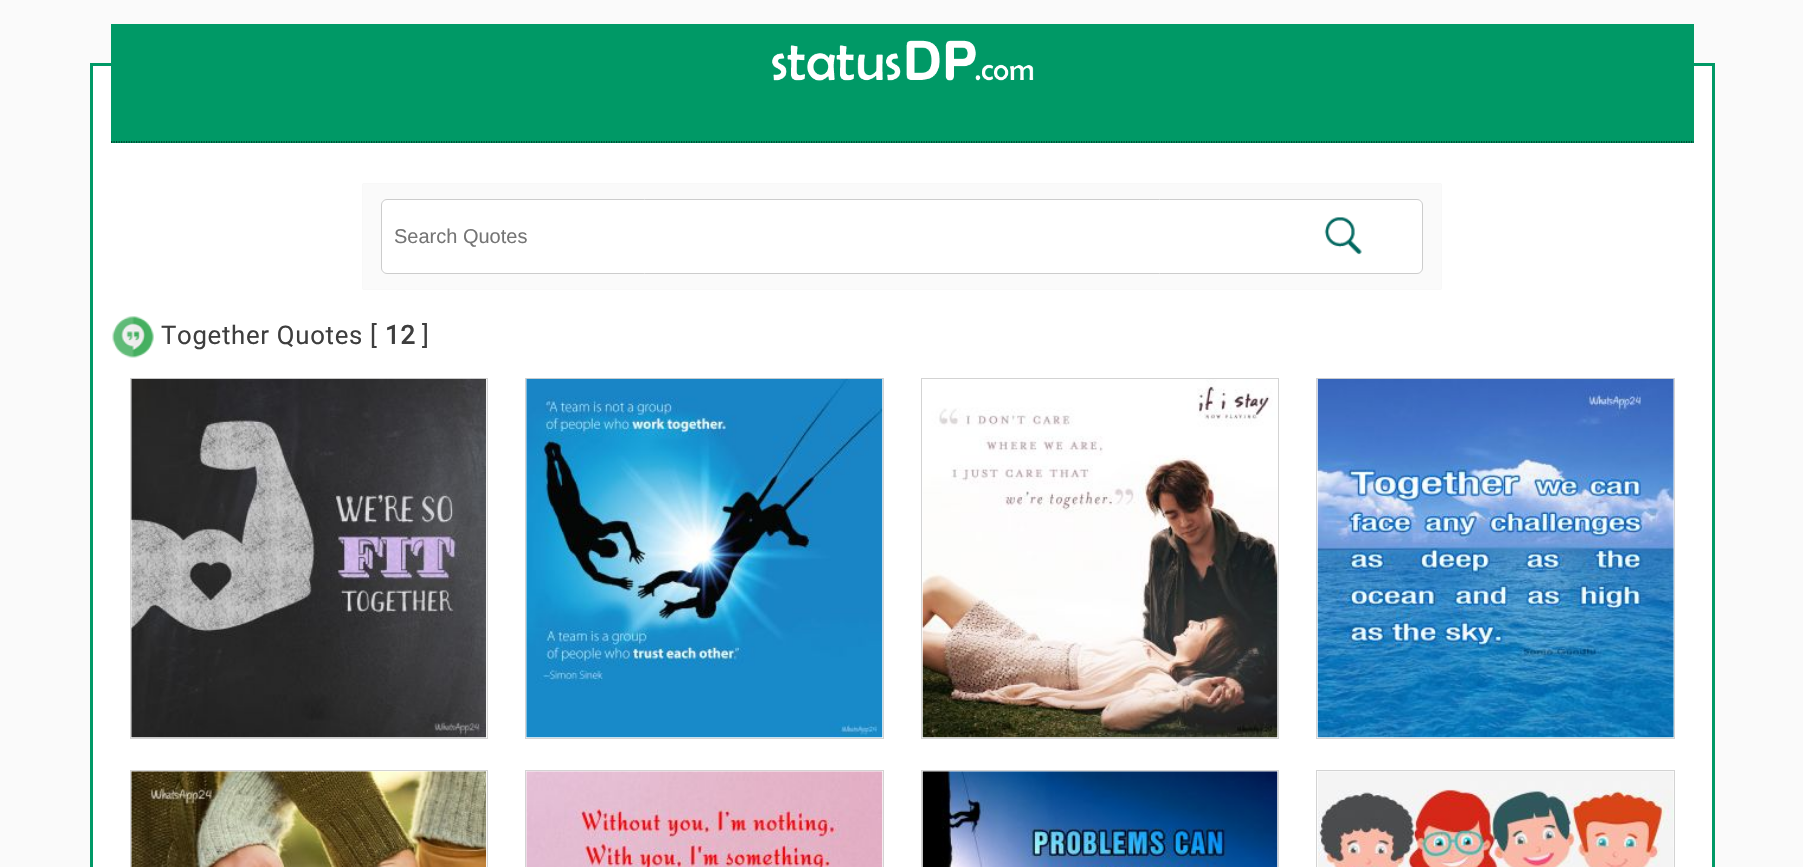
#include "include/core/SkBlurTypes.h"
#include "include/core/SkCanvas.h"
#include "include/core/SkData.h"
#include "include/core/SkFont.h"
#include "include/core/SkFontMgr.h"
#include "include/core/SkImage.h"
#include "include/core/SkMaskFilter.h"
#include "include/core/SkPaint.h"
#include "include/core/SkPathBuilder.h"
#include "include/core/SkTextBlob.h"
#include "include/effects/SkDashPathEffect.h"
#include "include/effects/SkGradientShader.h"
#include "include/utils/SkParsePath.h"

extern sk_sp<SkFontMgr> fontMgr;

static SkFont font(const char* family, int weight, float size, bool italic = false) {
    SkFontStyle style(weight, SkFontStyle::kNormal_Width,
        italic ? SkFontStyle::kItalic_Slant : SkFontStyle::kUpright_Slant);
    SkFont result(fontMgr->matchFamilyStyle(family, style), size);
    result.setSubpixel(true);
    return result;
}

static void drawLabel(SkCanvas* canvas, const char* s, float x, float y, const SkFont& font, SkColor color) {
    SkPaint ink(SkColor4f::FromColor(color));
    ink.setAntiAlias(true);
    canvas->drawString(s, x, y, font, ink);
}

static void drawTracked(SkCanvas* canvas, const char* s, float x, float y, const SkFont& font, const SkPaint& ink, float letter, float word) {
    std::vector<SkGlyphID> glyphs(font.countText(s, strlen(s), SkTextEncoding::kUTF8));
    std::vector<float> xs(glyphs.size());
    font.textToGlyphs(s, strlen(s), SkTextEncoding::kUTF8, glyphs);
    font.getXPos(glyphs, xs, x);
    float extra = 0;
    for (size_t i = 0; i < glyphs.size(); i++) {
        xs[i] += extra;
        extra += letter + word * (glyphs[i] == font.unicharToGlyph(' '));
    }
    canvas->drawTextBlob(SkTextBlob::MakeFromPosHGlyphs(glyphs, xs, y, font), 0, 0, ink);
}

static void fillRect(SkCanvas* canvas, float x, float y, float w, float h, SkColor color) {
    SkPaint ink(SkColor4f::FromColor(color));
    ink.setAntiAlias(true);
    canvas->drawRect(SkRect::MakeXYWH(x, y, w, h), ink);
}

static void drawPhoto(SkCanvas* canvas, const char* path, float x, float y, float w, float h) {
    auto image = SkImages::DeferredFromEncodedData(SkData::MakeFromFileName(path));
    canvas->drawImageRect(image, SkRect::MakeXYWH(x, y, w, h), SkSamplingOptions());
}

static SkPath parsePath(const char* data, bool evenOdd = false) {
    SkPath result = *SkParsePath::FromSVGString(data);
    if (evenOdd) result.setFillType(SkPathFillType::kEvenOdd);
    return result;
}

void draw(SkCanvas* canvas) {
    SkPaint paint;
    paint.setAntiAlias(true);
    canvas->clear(0xFFFAFAFA);
    paint.setColor(0xFFFFFFFF);
    canvas->drawRect(SkRect::MakeXYWH(91.5f, 64.5f, 1622, 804), paint);
    paint.setStroke(true);
    paint.setStrokeWidth(3);
    paint.setColor(0xFF009966);
    canvas->drawRect(SkRect::MakeXYWH(91.5f, 64.5f, 1622, 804), paint);
    fillRect(canvas, 111, 24, 1583, 119, 0xFF009966);
    paint.setStrokeWidth(1.2f);
    paint.setColor(0xFF000000);
    paint.setPathEffect(SkDashPathEffect::Make({{1.25f, 1.25f}}, 0));
    canvas->drawPath(parsePath("M111 142H1694"), paint);
    paint.setPathEffect(nullptr);
    drawPhoto(canvas, "assets/img1.png", 772, 40, 262, 41);
    paint.setStroke(false);
    paint.setColor(0xFFD7D7D7);
    paint.setMaskFilter(SkMaskFilter::MakeBlur(kNormal_SkBlurStyle, 0.5f));
    canvas->drawRect(SkRect::MakeXYWH(363, 184, 1078, 105), paint);
    paint.setMaskFilter(nullptr);
    fillRect(canvas, 363, 184, 1078, 105, 0xFFFAFAFA);
    paint.setColor(0xFFFFFFFF);
    canvas->drawRoundRect(SkRect::MakeXYWH(381.5f, 199.5f, 1041, 74), 5.5f, 5.5f, paint);
    paint.setStroke(true);
    paint.setStrokeWidth(1);
    paint.setColor(0xFFCCCCCC);
    canvas->drawRoundRect(SkRect::MakeXYWH(381.5f, 199.5f, 1041, 74), 5.5f, 5.5f, paint);
    SkFont font1 = font("Liberation Sans", 400, 20);
    drawLabel(canvas, "Search Quotes", 394, 243, font1, 0xFF757575);
    drawPhoto(canvas, "assets/img2.png", 1324, 217, 38, 38);
    drawPhoto(canvas, "assets/img3.png", 112, 316, 42, 42);
    SkFont font2 = font("Roboto", 400, 25.75f);
    paint.setStroke(false);
    paint.setColor(0xFF3E3E3E);
    drawTracked(canvas, "Together Quotes [", 161, 344, font2, paint, 0.7f, 0);
    SkFont font3 = font("Roboto", 700, 25.75f);
    drawTracked(canvas, "12", 385, 344, font3, paint, 0.7f, 0);
    drawTracked(canvas, "]", 422, 344, font2, paint, 0.7f, 0);
    paint.setStroke(true);
    paint.setColor(0xFFD3D3D3);
    canvas->drawRect(SkRect::MakeXYWH(130.5f, 378.5f, 357, 360), paint);
    drawPhoto(canvas, "assets/img4.png", 131, 378, 356, 360);
    canvas->drawRect(SkRect::MakeXYWH(525.5f, 378.5f, 358, 360), paint);
    drawPhoto(canvas, "assets/img5.png", 526, 378, 357, 360);
    canvas->drawRect(SkRect::MakeXYWH(921.5f, 378.5f, 357, 360), paint);
    drawPhoto(canvas, "assets/img6.png", 922, 379, 356, 359);
    canvas->drawRect(SkRect::MakeXYWH(1316.5f, 378.5f, 358, 360), paint);
    drawPhoto(canvas, "assets/img7.png", 1317, 378, 357, 360);
    canvas->drawRect(SkRect::MakeXYWH(130.5f, 770.5f, 357, 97), paint);
    drawPhoto(canvas, "assets/img8.png", 131, 771, 356, 96);
    canvas->drawRect(SkRect::MakeXYWH(525.5f, 770.5f, 358, 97), paint);
    drawPhoto(canvas, "assets/img9.png", 526, 771, 357, 96);
    canvas->drawRect(SkRect::MakeXYWH(921.5f, 770.5f, 357, 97), paint);
    drawPhoto(canvas, "assets/img10.png", 922, 771, 356, 96);
    canvas->drawRect(SkRect::MakeXYWH(1316.5f, 770.5f, 358, 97), paint);
    drawPhoto(canvas, "assets/img11.png", 1317, 771, 357, 96);
}
